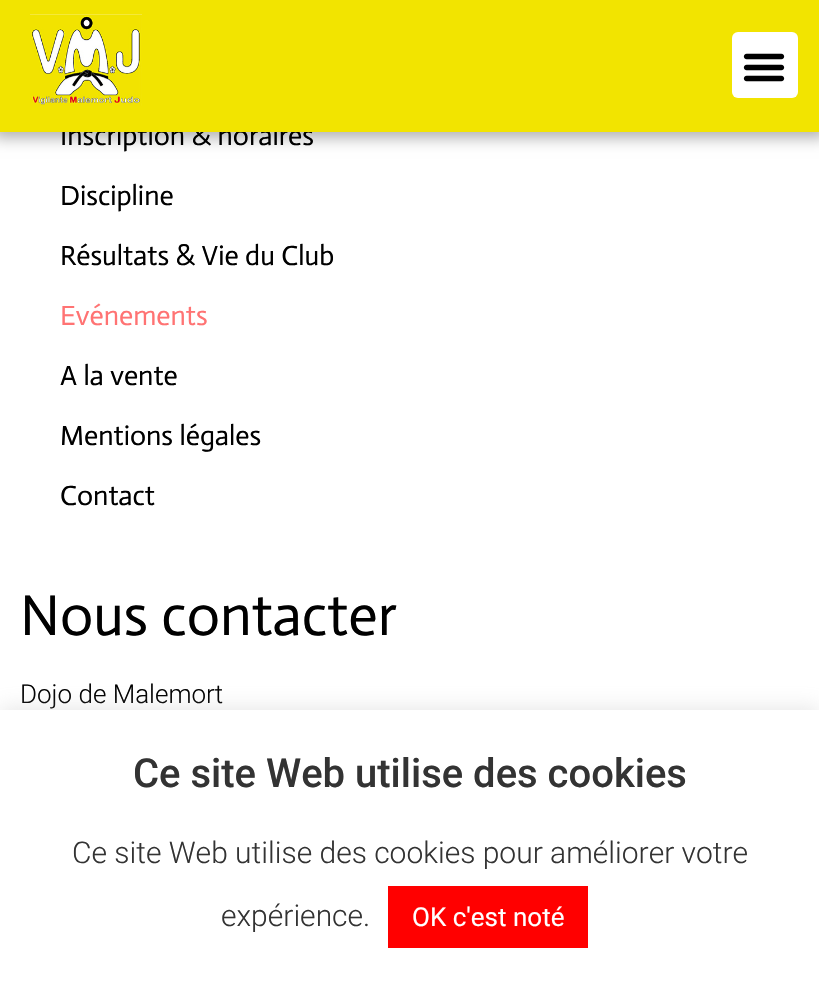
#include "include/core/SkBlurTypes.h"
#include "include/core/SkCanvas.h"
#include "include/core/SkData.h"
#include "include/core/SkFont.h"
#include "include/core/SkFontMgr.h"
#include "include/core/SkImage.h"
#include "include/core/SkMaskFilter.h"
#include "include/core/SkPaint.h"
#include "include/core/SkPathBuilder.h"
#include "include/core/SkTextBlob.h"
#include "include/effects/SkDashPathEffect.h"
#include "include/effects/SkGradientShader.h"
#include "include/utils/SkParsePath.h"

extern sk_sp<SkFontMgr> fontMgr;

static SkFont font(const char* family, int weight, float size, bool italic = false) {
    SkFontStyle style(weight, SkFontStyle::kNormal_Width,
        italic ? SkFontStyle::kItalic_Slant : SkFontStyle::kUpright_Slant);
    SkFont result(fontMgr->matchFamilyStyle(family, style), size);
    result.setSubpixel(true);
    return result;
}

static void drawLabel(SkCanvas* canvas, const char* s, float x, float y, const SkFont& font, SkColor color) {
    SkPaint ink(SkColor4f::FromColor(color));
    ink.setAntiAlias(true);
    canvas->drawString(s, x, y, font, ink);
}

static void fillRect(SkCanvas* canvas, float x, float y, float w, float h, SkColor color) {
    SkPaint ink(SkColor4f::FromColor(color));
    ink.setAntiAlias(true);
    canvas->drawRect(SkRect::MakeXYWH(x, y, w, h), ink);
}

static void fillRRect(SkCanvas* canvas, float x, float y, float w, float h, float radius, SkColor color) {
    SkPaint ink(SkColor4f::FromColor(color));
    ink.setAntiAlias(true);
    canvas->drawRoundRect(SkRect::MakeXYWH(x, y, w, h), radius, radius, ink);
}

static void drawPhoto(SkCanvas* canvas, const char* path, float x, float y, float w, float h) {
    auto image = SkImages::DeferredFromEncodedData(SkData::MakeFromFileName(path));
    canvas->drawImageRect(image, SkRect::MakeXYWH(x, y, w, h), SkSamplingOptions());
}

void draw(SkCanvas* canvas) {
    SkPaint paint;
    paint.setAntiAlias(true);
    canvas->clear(0xFFFFFFFF);
    paint.setColor(0xFFB1B1B1);
    paint.setMaskFilter(SkMaskFilter::MakeBlur(kNormal_SkBlurStyle, 7));
    canvas->drawRect(SkRect::MakeXYWH(-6, -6, 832, 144), paint);
    paint.setMaskFilter(nullptr);
    SkFont font1 = font("Actor", 400, 28);
    drawLabel(canvas, "Inscription & horaires", 60, 145, font1, 0xFF000000);
    fillRect(canvas, 0, 0, 819, 132, 0xFFF2E400);
    drawPhoto(canvas, "assets/img1.png", 30, 14, 112, 92);
    fillRRect(canvas, 732, 32, 66, 66, 6, 0xFFFFFFFF);
    drawPhoto(canvas, "assets/img2.png", 743, 53, 42, 29);
    drawLabel(canvas, "Discipline", 60, 205, font1, 0xFF000000);
    drawLabel(canvas, "Résultats & Vie du Club", 60, 265, font1, 0xFF000000);
    drawLabel(canvas, "Evénements", 60, 325, font1, 0xFFFF7373);
    drawLabel(canvas, "A la vente", 60, 385, font1, 0xFF000000);
    drawLabel(canvas, "Mentions légales", 60, 445, font1, 0xFF000000);
    drawLabel(canvas, "Contact", 60, 505, font1, 0xFF000000);
    SkFont font2 = font("Actor", 400, 58);
    drawLabel(canvas, "Nous contacter", 20, 635, font2, 0xFF000000);
    SkFont font3 = font("Roboto", 300, 26);
    drawLabel(canvas, "Dojo de Malemort", 20, 703, font3, 0xFF000000);
    paint.setColor(0x4DACABAB);
    paint.setMaskFilter(SkMaskFilter::MakeBlur(kNormal_SkBlurStyle, 10));
    canvas->drawRect(SkRect::MakeXYWH(0, 708, 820, 272), paint);
    paint.setMaskFilter(nullptr);
    fillRect(canvas, 0, 710, 819, 271, 0xFFFFFFFF);
    SkFont font4 = font("Roboto", 500, 40);
    drawLabel(canvas, "Ce site Web utilise des cookies", 133, 787, font4, 0xFF333333);
    SkFont font5 = font("Roboto", 300, 30);
    drawLabel(canvas, "Ce site Web utilise des cookies pour améliorer votre", 72, 863, font5, 0xFF333333);
    drawLabel(canvas, "expérience.", 221, 926, font5, 0xFF333333);
    fillRect(canvas, 388, 886, 200, 62, 0xFFFF0000);
    SkFont font6 = font("Roboto", 400, 26);
    drawLabel(canvas, "OK c'est noté", 412, 926, font6, 0xFFFFFFFF);
}
